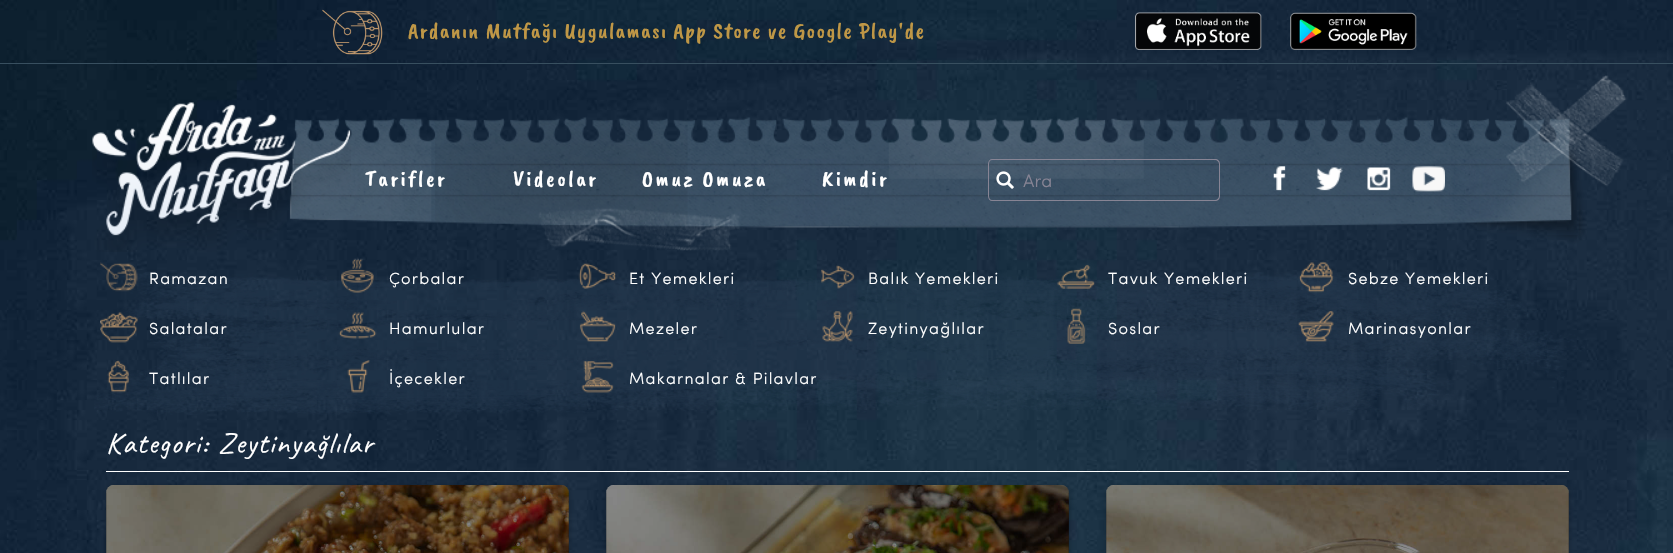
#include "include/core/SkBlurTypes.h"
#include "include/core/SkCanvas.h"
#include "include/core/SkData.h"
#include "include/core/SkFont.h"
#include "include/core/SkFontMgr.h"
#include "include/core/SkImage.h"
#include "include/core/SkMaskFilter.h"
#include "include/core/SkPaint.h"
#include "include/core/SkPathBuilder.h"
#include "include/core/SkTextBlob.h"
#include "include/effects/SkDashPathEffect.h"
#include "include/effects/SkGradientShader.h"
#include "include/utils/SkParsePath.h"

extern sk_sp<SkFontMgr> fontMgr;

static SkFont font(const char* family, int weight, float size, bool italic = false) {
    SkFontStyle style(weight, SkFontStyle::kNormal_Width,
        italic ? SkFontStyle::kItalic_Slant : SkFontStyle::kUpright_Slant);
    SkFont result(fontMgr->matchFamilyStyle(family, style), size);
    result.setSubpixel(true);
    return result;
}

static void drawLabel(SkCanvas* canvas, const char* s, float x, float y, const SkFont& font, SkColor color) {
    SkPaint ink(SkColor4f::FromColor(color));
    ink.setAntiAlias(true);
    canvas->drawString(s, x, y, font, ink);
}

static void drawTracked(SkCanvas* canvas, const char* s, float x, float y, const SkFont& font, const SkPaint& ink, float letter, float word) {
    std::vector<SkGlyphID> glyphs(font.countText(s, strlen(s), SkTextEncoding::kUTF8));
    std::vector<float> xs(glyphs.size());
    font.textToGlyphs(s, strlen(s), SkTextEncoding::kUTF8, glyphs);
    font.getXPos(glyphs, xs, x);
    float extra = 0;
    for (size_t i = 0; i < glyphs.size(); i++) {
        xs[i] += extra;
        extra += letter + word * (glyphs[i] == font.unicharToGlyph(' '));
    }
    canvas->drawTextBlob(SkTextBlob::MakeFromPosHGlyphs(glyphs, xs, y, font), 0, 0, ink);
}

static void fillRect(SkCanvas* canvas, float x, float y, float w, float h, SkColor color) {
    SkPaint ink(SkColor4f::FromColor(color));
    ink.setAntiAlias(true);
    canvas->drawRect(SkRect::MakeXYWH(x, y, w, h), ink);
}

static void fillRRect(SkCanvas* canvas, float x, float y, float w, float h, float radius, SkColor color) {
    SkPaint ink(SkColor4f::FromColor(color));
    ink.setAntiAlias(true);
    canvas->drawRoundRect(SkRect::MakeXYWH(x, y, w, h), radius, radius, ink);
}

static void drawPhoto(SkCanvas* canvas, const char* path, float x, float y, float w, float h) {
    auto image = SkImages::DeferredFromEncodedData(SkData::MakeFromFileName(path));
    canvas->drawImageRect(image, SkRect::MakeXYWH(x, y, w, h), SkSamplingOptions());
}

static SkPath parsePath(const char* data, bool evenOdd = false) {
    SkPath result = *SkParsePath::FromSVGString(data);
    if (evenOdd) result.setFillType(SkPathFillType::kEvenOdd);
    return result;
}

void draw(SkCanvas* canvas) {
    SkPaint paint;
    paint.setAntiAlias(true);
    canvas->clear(0xFFFFFFFF);
    drawPhoto(canvas, "assets/img1.png", 0, 0, 1673, 553);
    fillRect(canvas, 0, 63, 1673, 1, 0xFF384F5F);
    drawPhoto(canvas, "assets/img2.png", 322, 9, 61, 46);
    SkFont font1 = font("Caveat Brush", 400, 22.5f);
    paint.setColor(0xFFBF9746);
    drawTracked(canvas, "Ardanın Mutfağı Uygulaması App Store ve Google Play'de", 408, 38, font1, paint, 1.25f, 0);
    drawPhoto(canvas, "assets/img3.png", 1135, 12, 127, 38);
    drawPhoto(canvas, "assets/img4.png", 1290, 12, 127, 38);
    drawPhoto(canvas, "assets/img5.png", 289, 75, 1338, 176);
    drawPhoto(canvas, "assets/img6.png", 92, 102, 259, 150);
    paint.setColor(0xFFFFFFFF);
    drawTracked(canvas, "Tarifler", 365, 186, font1, paint, 2.5f, 0);
    drawTracked(canvas, "Videolar", 513, 186, font1, paint, 2.5f, 0);
    drawTracked(canvas, "Omuz Omuza", 642, 186, font1, paint, 2.5f, 0);
    drawTracked(canvas, "Kimdir", 822, 186, font1, paint, 2.5f, 0);
    paint.setColor(0xFF878494);
    canvas->drawPath(parsePath("M992 159H1021V201H992C990 201 988 199 988 196V164C988 161 990 159 992 159ZM992 160H1021V200H992C990 200 989 198 989 196V164C989 162 990 160 992 160Z", true), paint);
    drawPhoto(canvas, "assets/img7.png", 996, 171, 18, 18);
    canvas->drawPath(parsePath("M1021 159H1215C1218 159 1220 161 1220 164V196C1220 199 1218 201 1215 201H1021ZM1021 160H1215C1217 160 1219 162 1219 164V196C1219 198 1217 200 1215 200H1021Z", true), paint);
    SkFont font2 = font("Sofia", 400, 18);
    drawLabel(canvas, "Ara", 1023, 187, font2, 0xFF878494);
    drawPhoto(canvas, "assets/img8.png", 1273, 166, 13, 25);
    drawPhoto(canvas, "assets/img9.png", 1316, 167, 27, 24);
    drawPhoto(canvas, "assets/img10.png", 1367, 167, 24, 24);
    drawPhoto(canvas, "assets/img11.png", 1412, 166, 33, 26);
    drawPhoto(canvas, "assets/img12.png", 94, 272, 1491, 143);
    drawPhoto(canvas, "assets/img13.png", 100, 262, 38, 30);
    SkFont font3 = font("Sofia", 400, 16.25f);
    paint.setColor(0xFFFFFFFF);
    drawTracked(canvas, "Ramazan", 149, 284, font3, paint, 1.25f, 0);
    drawPhoto(canvas, "assets/img14.png", 341, 258, 33, 35);
    drawTracked(canvas, "Çorbalar", 389, 284, font3, paint, 1.25f, 0);
    drawPhoto(canvas, "assets/img15.png", 578, 263, 39, 26);
    drawTracked(canvas, "Et Yemekleri", 629, 284, font3, paint, 1.25f, 0);
    drawPhoto(canvas, "assets/img16.png", 821, 265, 34, 24);
    drawTracked(canvas, "Balık Yemekleri", 868, 284, font3, paint, 1.25f, 0);
    drawPhoto(canvas, "assets/img17.png", 1057, 264, 38, 25);
    drawTracked(canvas, "Tavuk Yemekleri", 1108, 284, font3, paint, 1.25f, 0);
    drawPhoto(canvas, "assets/img18.png", 1298, 261, 36, 32);
    drawTracked(canvas, "Sebze Yemekleri", 1348, 284, font3, paint, 1.25f, 0);
    drawPhoto(canvas, "assets/img19.png", 100, 312, 38, 31);
    drawTracked(canvas, "Salatalar", 149, 334, font3, paint, 1.25f, 0);
    drawPhoto(canvas, "assets/img20.png", 338, 312, 39, 27);
    drawTracked(canvas, "Hamurlular", 389, 334, font3, paint, 1.25f, 0);
    drawPhoto(canvas, "assets/img21.png", 579, 311, 37, 31);
    drawTracked(canvas, "Mezeler", 629, 334, font3, paint, 1.25f, 0);
    drawPhoto(canvas, "assets/img22.png", 822, 311, 31, 31);
    drawTracked(canvas, "Zeytinyağlılar", 868, 334, font3, paint, 1.25f, 0);
    drawPhoto(canvas, "assets/img23.png", 1067, 308, 19, 36);
    drawTracked(canvas, "Soslar", 1108, 334, font3, paint, 1.25f, 0);
    drawPhoto(canvas, "assets/img24.png", 1298, 311, 36, 31);
    drawTracked(canvas, "Marinasyonlar", 1348, 334, font3, paint, 1.25f, 0);
    drawPhoto(canvas, "assets/img25.png", 107, 360, 22, 33);
    drawTracked(canvas, "Tatlılar", 149, 384, font3, paint, 1.25f, 0);
    drawPhoto(canvas, "assets/img26.png", 347, 360, 23, 33);
    drawTracked(canvas, "İçecekler", 389, 384, font3, paint, 1.25f, 0);
    drawPhoto(canvas, "assets/img27.png", 581, 361, 33, 32);
    drawTracked(canvas, "Makarnalar & Pilavlar", 629, 384, font3, paint, 1.25f, 0);
    fillRect(canvas, 106, 471, 1463, 1, 0xFFFFFFFF);
    SkFont font4 = font("Caveat", 400, 30);
    drawTracked(canvas, "Kategori: Zeytinyağlılar", 106, 453, font4, paint, 1.25f, 1);
    paint.setColor(0x3B000000);
    paint.setMaskFilter(SkMaskFilter::MakeBlur(kNormal_SkBlurStyle, 2.5f));
    canvas->drawRoundRect(SkRect::MakeXYWH(106, 486, 463, 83), 8, 8, paint);
    paint.setMaskFilter(nullptr);
    fillRRect(canvas, 106, 485, 463, 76, 8, 0xFF192C3E);
    drawPhoto(canvas, "assets/img28.png", 106, 485, 463, 68);
    fillRRect(canvas, 106, 485, 463, 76, 8, 0x75000000);
    paint.setMaskFilter(SkMaskFilter::MakeBlur(kNormal_SkBlurStyle, 2.5f));
    canvas->drawRoundRect(SkRect::MakeXYWH(606, 486, 463, 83), 8, 8, paint);
    paint.setMaskFilter(nullptr);
    fillRRect(canvas, 606, 485, 463, 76, 8, 0xFF192C3E);
    drawPhoto(canvas, "assets/img29.png", 606, 485, 463, 68);
    fillRRect(canvas, 606, 485, 463, 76, 8, 0x75000000);
    paint.setMaskFilter(SkMaskFilter::MakeBlur(kNormal_SkBlurStyle, 2.5f));
    canvas->drawRoundRect(SkRect::MakeXYWH(1106, 486, 463, 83), 8, 8, paint);
    paint.setMaskFilter(nullptr);
    fillRRect(canvas, 1106, 485, 463, 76, 8, 0xFF192C3E);
    drawPhoto(canvas, "assets/img30.png", 1106, 485, 463, 68);
    fillRRect(canvas, 1106, 485, 463, 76, 8, 0x75000000);
}
